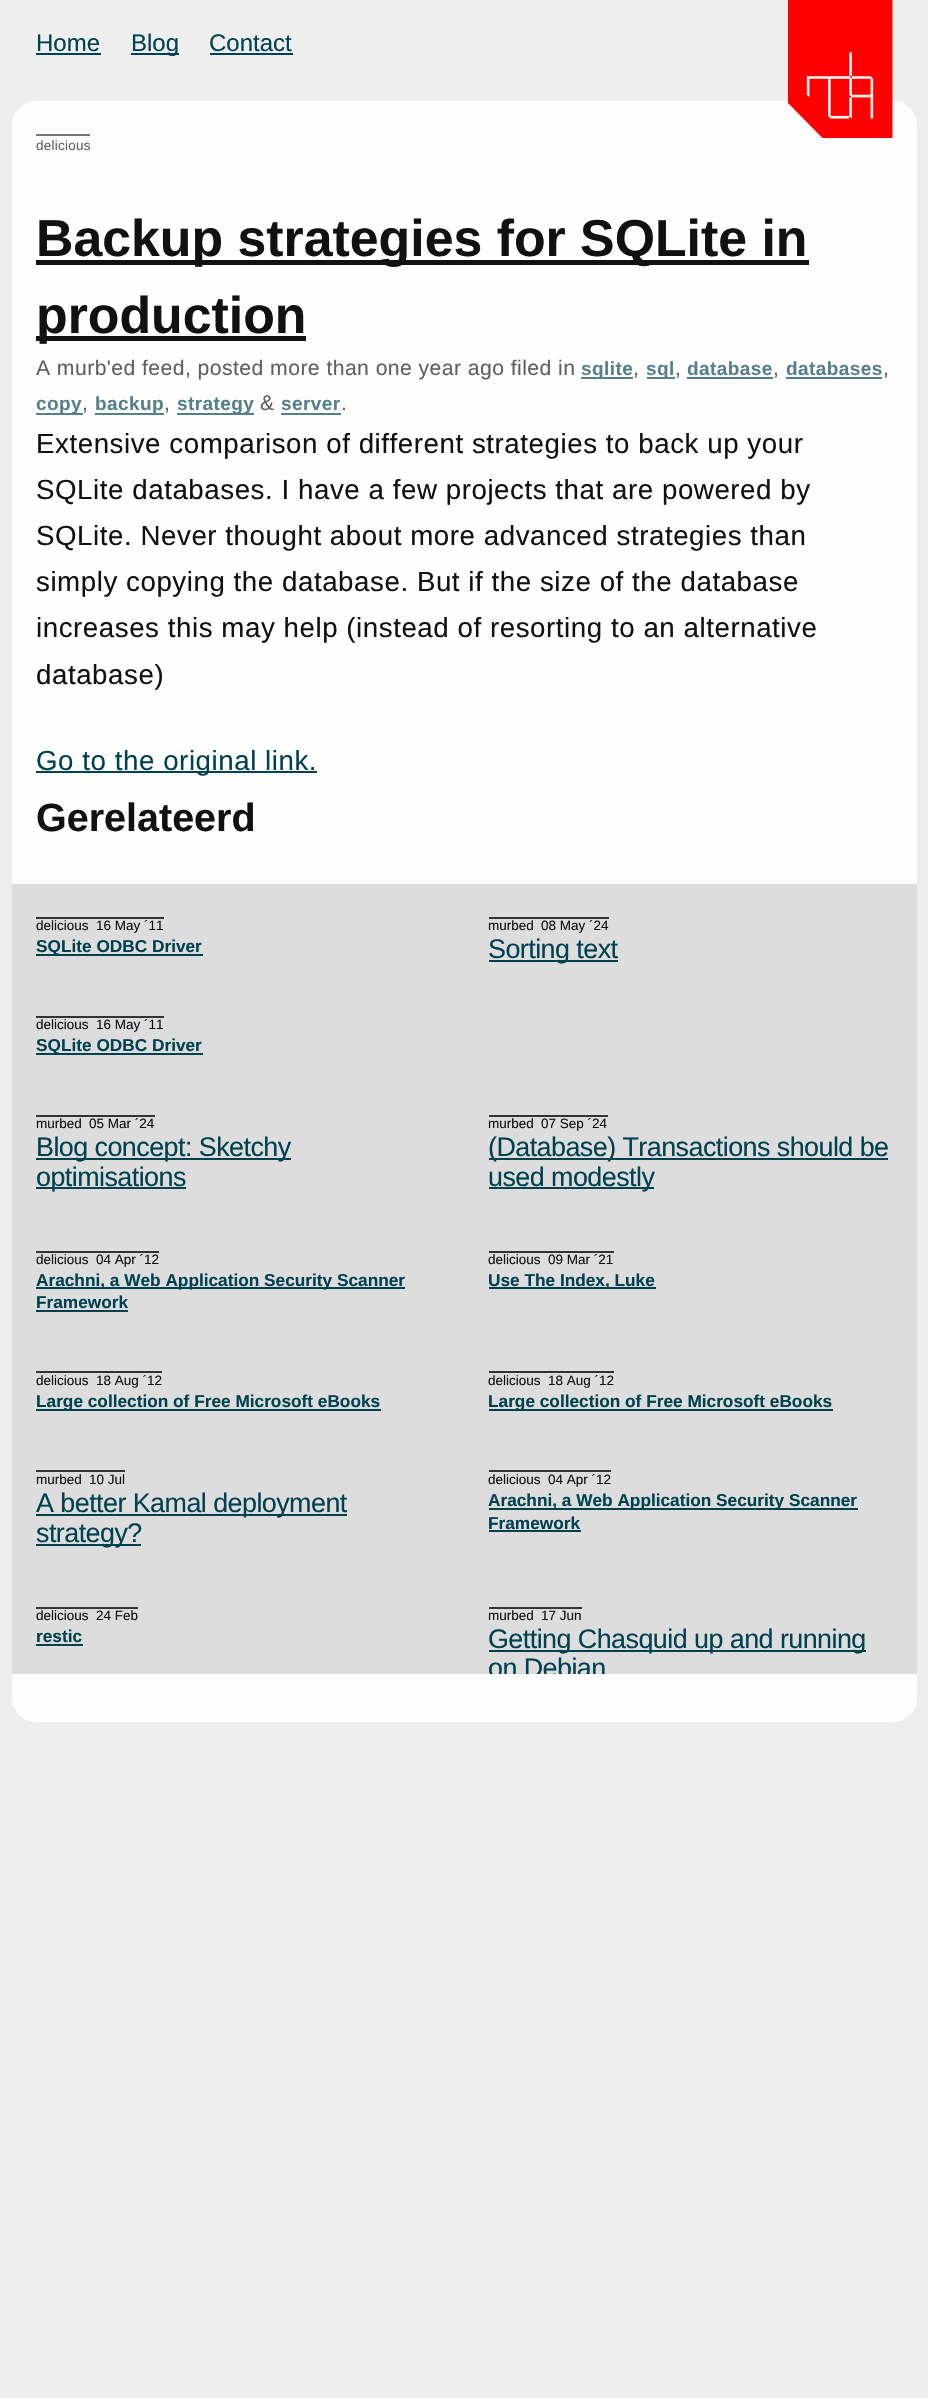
#include "include/core/SkBlurTypes.h"
#include "include/core/SkCanvas.h"
#include "include/core/SkData.h"
#include "include/core/SkFont.h"
#include "include/core/SkFontMgr.h"
#include "include/core/SkImage.h"
#include "include/core/SkMaskFilter.h"
#include "include/core/SkPaint.h"
#include "include/core/SkPathBuilder.h"
#include "include/core/SkTextBlob.h"
#include "include/effects/SkDashPathEffect.h"
#include "include/effects/SkGradientShader.h"
#include "include/utils/SkParsePath.h"

extern sk_sp<SkFontMgr> fontMgr;

static SkFont font(const char* family, int weight, float size, bool italic = false) {
    SkFontStyle style(weight, SkFontStyle::kNormal_Width,
        italic ? SkFontStyle::kItalic_Slant : SkFontStyle::kUpright_Slant);
    SkFont result(fontMgr->matchFamilyStyle(family, style), size);
    result.setSubpixel(true);
    return result;
}

static void drawLabel(SkCanvas* canvas, const char* s, float x, float y, const SkFont& font, SkColor color) {
    SkPaint ink(SkColor4f::FromColor(color));
    ink.setAntiAlias(true);
    canvas->drawString(s, x, y, font, ink);
}

static void drawTracked(SkCanvas* canvas, const char* s, float x, float y, const SkFont& font, const SkPaint& ink, float letter, float word) {
    std::vector<SkGlyphID> glyphs(font.countText(s, strlen(s), SkTextEncoding::kUTF8));
    std::vector<float> xs(glyphs.size());
    font.textToGlyphs(s, strlen(s), SkTextEncoding::kUTF8, glyphs);
    font.getXPos(glyphs, xs, x);
    float extra = 0;
    for (size_t i = 0; i < glyphs.size(); i++) {
        xs[i] += extra;
        extra += letter + word * (glyphs[i] == font.unicharToGlyph(' '));
    }
    canvas->drawTextBlob(SkTextBlob::MakeFromPosHGlyphs(glyphs, xs, y, font), 0, 0, ink);
}

static void fillRect(SkCanvas* canvas, float x, float y, float w, float h, SkColor color) {
    SkPaint ink(SkColor4f::FromColor(color));
    ink.setAntiAlias(true);
    canvas->drawRect(SkRect::MakeXYWH(x, y, w, h), ink);
}

static void fillRRect(SkCanvas* canvas, float x, float y, float w, float h, float radius, SkColor color) {
    SkPaint ink(SkColor4f::FromColor(color));
    ink.setAntiAlias(true);
    canvas->drawRoundRect(SkRect::MakeXYWH(x, y, w, h), radius, radius, ink);
}

static void drawPhoto(SkCanvas* canvas, const char* path, float x, float y, float w, float h) {
    auto image = SkImages::DeferredFromEncodedData(SkData::MakeFromFileName(path));
    canvas->drawImageRect(image, SkRect::MakeXYWH(x, y, w, h), SkSamplingOptions());
}

void draw(SkCanvas* canvas) {
    SkPaint paint;
    paint.setAntiAlias(true);
    canvas->clear(0xFFEEEEEE);
    SkFont font1 = font("Liberation Sans", 400, 24);
    drawLabel(canvas, "Home", 36, 51, font1, 0xFF004151);
    fillRect(canvas, 36, 53, 65, 2, 0xFF004151);
    fillRect(canvas, 131, 53, 48, 2, 0xFF004151);
    drawLabel(canvas, "Blog", 131, 51, font1, 0xFF004151);
    drawLabel(canvas, "Contact", 209, 51, font1, 0xFF004151);
    fillRect(canvas, 210, 53, 83, 2, 0xFF004151);
    fillRRect(canvas, 12, 101, 905, 1621, 24, 0xFFFEFEFE);
    drawPhoto(canvas, "assets/img1.png", 788, 0, 105, 138);
    fillRect(canvas, 36, 134, 54, 2, 0xFF777777);
    SkFont font2 = font("Liberation Sans", 400, 13.5f);
    paint.setColor(0xFF606060);
    drawTracked(canvas, "delicious", 36, 150, font2, paint, 0.25f, 0);
    fillRect(canvas, 36, 260, 773, 5, 0xFF111111);
    SkFont font3 = font("Liberation Sans", 700, 51.8f);
    drawLabel(canvas, "Backup strategies for SQLite in", 36, 256, font3, 0xFF111111);
    fillRect(canvas, 36, 336, 270, 5, 0xFF111111);
    drawLabel(canvas, "production", 36, 333, font3, 0xFF111111);
    SkFont font4 = font("Liberation Sans", 400, 21.2f);
    drawTracked(canvas, "A murb'ed feed, posted more than one year ago filed in", 36, 375, font4, paint, 0.42f, 0);
    fillRect(canvas, 581, 377, 52, 2, 0xFF55808B);
    SkFont font5 = font("Liberation Sans", 700, 19);
    paint.setColor(0xFF55808B);
    drawTracked(canvas, "sqlite", 581, 375, font5, paint, 0.42f, 0);
    paint.setColor(0xFF606060);
    drawTracked(canvas, ",", 633, 375, font4, paint, 0.42f, 0);
    fillRect(canvas, 647, 377, 28, 2, 0xFF55808B);
    paint.setColor(0xFF55808B);
    drawTracked(canvas, "sql", 646, 375, font5, paint, 0.42f, 0);
    paint.setColor(0xFF606060);
    drawTracked(canvas, ",", 675, 375, font4, paint, 0.42f, 0);
    paint.setColor(0xFF55808B);
    drawTracked(canvas, "database", 687, 375, font5, paint, 0.42f, 0);
    fillRect(canvas, 687, 377, 86, 2, 0xFF55808B);
    paint.setColor(0xFF606060);
    drawTracked(canvas, ",", 773, 375, font4, paint, 0.42f, 0);
    paint.setColor(0xFF55808B);
    drawTracked(canvas, "databases", 786, 375, font5, paint, 0.42f, 0);
    fillRect(canvas, 786, 377, 96, 2, 0xFF55808B);
    paint.setColor(0xFF606060);
    drawTracked(canvas, ",", 883, 375, font4, paint, 0.42f, 0);
    fillRect(canvas, 36, 413, 47, 2, 0xFF55808B);
    paint.setColor(0xFF55808B);
    drawTracked(canvas, "copy", 36, 410, font5, paint, 0.42f, 0);
    paint.setColor(0xFF606060);
    drawTracked(canvas, ",", 82, 410, font4, paint, 0.42f, 0);
    fillRect(canvas, 95, 413, 69, 2, 0xFF55808B);
    paint.setColor(0xFF55808B);
    drawTracked(canvas, "backup", 95, 410, font5, paint, 0.42f, 0);
    paint.setColor(0xFF606060);
    drawTracked(canvas, ",", 164, 410, font4, paint, 0.42f, 0);
    fillRect(canvas, 177, 413, 77, 2, 0xFF55808B);
    paint.setColor(0xFF55808B);
    drawTracked(canvas, "strategy", 177, 410, font5, paint, 0.42f, 0);
    paint.setColor(0xFF606060);
    drawTracked(canvas, "&", 260, 410, font4, paint, 0.42f, 0);
    paint.setColor(0xFF55808B);
    drawTracked(canvas, "server", 281, 410, font5, paint, 0.42f, 0);
    fillRect(canvas, 281, 413, 60, 2, 0xFF55808B);
    paint.setColor(0xFF606060);
    drawTracked(canvas, ".", 341, 410, font4, paint, 0.42f, 0);
    SkFont font6 = font("Liberation Sans", 400, 27.7f);
    paint.setColor(0xFF111111);
    drawTracked(canvas, "Extensive comparison of different strategies to back up your", 36, 453, font6, paint, 0.55f, 0);
    drawTracked(canvas, "SQLite databases. I have a few projects that are powered by", 36, 499, font6, paint, 0.55f, 0);
    drawTracked(canvas, "SQLite. Never thought about more advanced strategies than", 36, 545, font6, paint, 0.55f, 0);
    drawTracked(canvas, "simply copying the database. But if the size of the database", 36, 591, font6, paint, 0.55f, 0);
    drawTracked(canvas, "increases this may help (instead of resorting to an alternative", 36, 637, font6, paint, 0.55f, 0);
    drawTracked(canvas, "database)", 36, 684, font6, paint, 0.55f, 0);
    fillRect(canvas, 36, 771, 281, 2, 0xFF004151);
    paint.setColor(0xFF004151);
    drawTracked(canvas, "Go to the original link.", 36, 770, font6, paint, 0.55f, 0);
    SkFont font7 = font("Liberation Sans", 700, 39.5f);
    drawLabel(canvas, "Gerelateerd", 36, 831, font7, 0xFF111111);
    fillRect(canvas, 12, 884, 905, 790, 0xFFDDDDDD);
    fillRect(canvas, 36, 917, 128, 2, 0xFF333333);
    drawLabel(canvas, "delicious", 36, 930, font2, 0xFF111111);
    drawLabel(canvas, "16 May ´11", 96, 930, font2, 0xFF111111);
    fillRect(canvas, 36, 954, 167, 2, 0xFF004151);
    SkFont font8 = font("Liberation Sans", 700, 17.25f);
    drawLabel(canvas, "SQLite ODBC Driver", 36, 952, font8, 0xFF004151);
    fillRect(canvas, 489, 917, 120, 2, 0xFF333333);
    drawLabel(canvas, "murbed", 488, 930, font2, 0xFF111111);
    drawLabel(canvas, "08 May ´24", 541, 930, font2, 0xFF111111);
    fillRect(canvas, 489, 960, 129, 2, 0xFF004151);
    SkFont font9 = font("Liberation Sans", 400, 26.9f);
    drawTracked(canvas, "Sorting text", 488, 958, font9, paint, -0.55f, 0);
    fillRect(canvas, 36, 1016, 128, 2, 0xFF333333);
    drawLabel(canvas, "delicious", 36, 1029, font2, 0xFF111111);
    drawLabel(canvas, "16 May ´11", 96, 1029, font2, 0xFF111111);
    fillRect(canvas, 36, 1053, 167, 2, 0xFF004151);
    drawLabel(canvas, "SQLite ODBC Driver", 36, 1051, font8, 0xFF004151);
    fillRect(canvas, 36, 1115, 119, 2, 0xFF333333);
    drawLabel(canvas, "murbed", 36, 1128, font2, 0xFF111111);
    drawLabel(canvas, "05 Mar ´24", 89, 1128, font2, 0xFF111111);
    fillRect(canvas, 36, 1158, 255, 2, 0xFF004151);
    drawTracked(canvas, "Blog concept: Sketchy", 36, 1156, font9, paint, -0.55f, 0);
    fillRect(canvas, 36, 1187, 150, 2, 0xFF004151);
    drawTracked(canvas, "optimisations", 36, 1186, font9, paint, -0.55f, 0);
    fillRect(canvas, 489, 1115, 119, 2, 0xFF333333);
    drawLabel(canvas, "murbed", 488, 1128, font2, 0xFF111111);
    drawLabel(canvas, "07 Sep ´24", 541, 1128, font2, 0xFF111111);
    fillRect(canvas, 489, 1158, 399, 2, 0xFF004151);
    drawTracked(canvas, "(Database) Transactions should be", 488, 1156, font9, paint, -0.55f, 0);
    fillRect(canvas, 489, 1187, 165, 2, 0xFF004151);
    drawTracked(canvas, "used modestly", 488, 1186, font9, paint, -0.55f, 0);
    fillRect(canvas, 36, 1251, 123, 2, 0xFF333333);
    drawLabel(canvas, "delicious", 36, 1264, font2, 0xFF111111);
    drawLabel(canvas, "04 Apr ´12", 96, 1264, font2, 0xFF111111);
    fillRect(canvas, 36, 1287, 369, 2, 0xFF004151);
    drawLabel(canvas, "Arachni, a Web Application Security Scanner", 36, 1286, font8, 0xFF004151);
    drawLabel(canvas, "Framework", 36, 1308, font8, 0xFF004151);
    fillRect(canvas, 36, 1310, 92, 2, 0xFF004151);
    fillRect(canvas, 489, 1251, 125, 2, 0xFF333333);
    drawLabel(canvas, "delicious", 488, 1264, font2, 0xFF111111);
    drawLabel(canvas, "09 Mar ´21", 548, 1264, font2, 0xFF111111);
    fillRect(canvas, 489, 1287, 167, 2, 0xFF004151);
    drawLabel(canvas, "Use The Index, Luke", 488, 1286, font8, 0xFF004151);
    fillRect(canvas, 36, 1371, 126, 2, 0xFF333333);
    drawLabel(canvas, "delicious", 36, 1385, font2, 0xFF111111);
    drawLabel(canvas, "18 Aug ´12", 96, 1385, font2, 0xFF111111);
    fillRect(canvas, 36, 1409, 345, 2, 0xFF004151);
    drawLabel(canvas, "Large collection of Free Microsoft eBooks", 36, 1407, font8, 0xFF004151);
    fillRect(canvas, 489, 1371, 125, 2, 0xFF333333);
    drawLabel(canvas, "delicious", 488, 1385, font2, 0xFF111111);
    drawLabel(canvas, "18 Aug ´12", 548, 1385, font2, 0xFF111111);
    fillRect(canvas, 489, 1409, 344, 2, 0xFF004151);
    drawLabel(canvas, "Large collection of Free Microsoft eBooks", 488, 1407, font8, 0xFF004151);
    fillRect(canvas, 36, 1470, 89, 2, 0xFF333333);
    drawLabel(canvas, "murbed", 36, 1484, font2, 0xFF111111);
    drawLabel(canvas, "10 Jul", 89, 1484, font2, 0xFF111111);
    fillRect(canvas, 36, 1514, 311, 2, 0xFF004151);
    drawTracked(canvas, "A better Kamal deployment", 36, 1512, font9, paint, -0.55f, 0);
    fillRect(canvas, 36, 1544, 105, 2, 0xFF004151);
    drawTracked(canvas, "strategy?", 36, 1542, font9, paint, -0.55f, 0);
    fillRect(canvas, 489, 1470, 122, 2, 0xFF333333);
    drawLabel(canvas, "delicious", 488, 1484, font2, 0xFF111111);
    drawLabel(canvas, "04 Apr ´12", 548, 1484, font2, 0xFF111111);
    fillRect(canvas, 489, 1508, 369, 2, 0xFF004151);
    drawLabel(canvas, "Arachni, a Web Application Security Scanner", 488, 1506, font8, 0xFF004151);
    drawLabel(canvas, "Framework", 488, 1529, font8, 0xFF004151);
    fillRect(canvas, 489, 1530, 92, 2, 0xFF004151);
    fillRect(canvas, 36, 1607, 102, 2, 0xFF333333);
    drawLabel(canvas, "delicious", 36, 1620, font2, 0xFF111111);
    drawLabel(canvas, "24 Feb", 96, 1620, font2, 0xFF111111);
    drawLabel(canvas, "restic", 36, 1642, font8, 0xFF004151);
    fillRect(canvas, 36, 1644, 47, 2, 0xFF004151);
    fillRect(canvas, 489, 1607, 93, 2, 0xFF333333);
    drawLabel(canvas, "murbed", 488, 1620, font2, 0xFF111111);
    drawLabel(canvas, "17 Jun", 541, 1620, font2, 0xFF111111);
    fillRect(canvas, 489, 1650, 377, 2, 0xFF004151);
    drawTracked(canvas, "Getting Chasquid up and running", 488, 1648, font9, paint, -0.55f, 0);
    canvas->save();
    canvas->clipRect(SkRect::MakeXYWH(465, 1583, 452, 91));
    drawTracked(canvas, "on Debian", 488, 1677, font9, paint, -0.55f, 0);
    canvas->restore();
}
